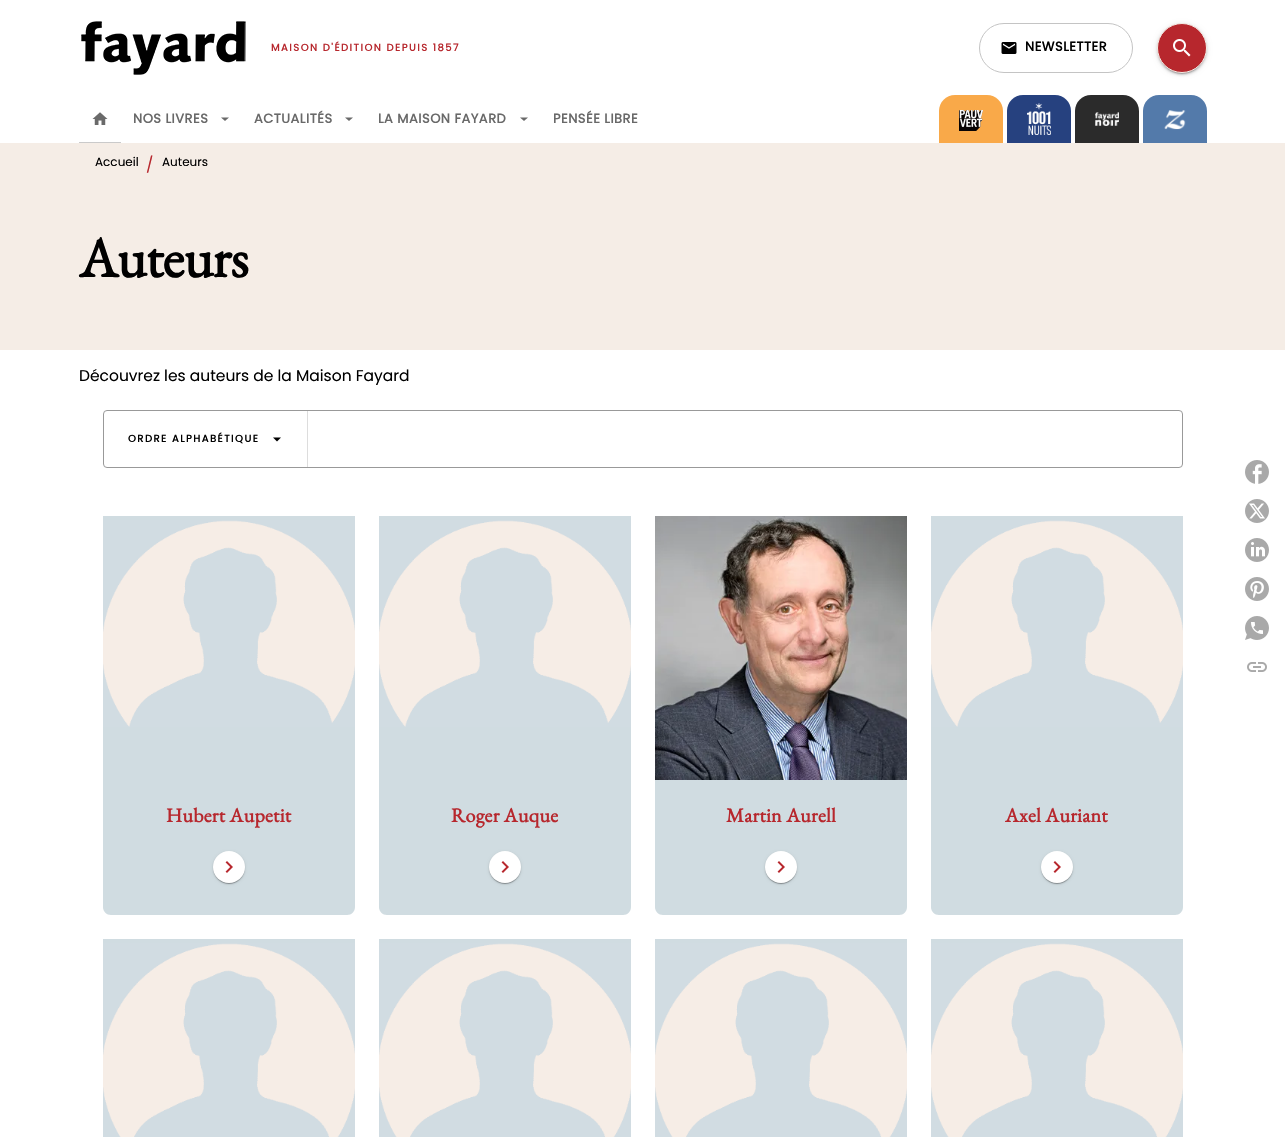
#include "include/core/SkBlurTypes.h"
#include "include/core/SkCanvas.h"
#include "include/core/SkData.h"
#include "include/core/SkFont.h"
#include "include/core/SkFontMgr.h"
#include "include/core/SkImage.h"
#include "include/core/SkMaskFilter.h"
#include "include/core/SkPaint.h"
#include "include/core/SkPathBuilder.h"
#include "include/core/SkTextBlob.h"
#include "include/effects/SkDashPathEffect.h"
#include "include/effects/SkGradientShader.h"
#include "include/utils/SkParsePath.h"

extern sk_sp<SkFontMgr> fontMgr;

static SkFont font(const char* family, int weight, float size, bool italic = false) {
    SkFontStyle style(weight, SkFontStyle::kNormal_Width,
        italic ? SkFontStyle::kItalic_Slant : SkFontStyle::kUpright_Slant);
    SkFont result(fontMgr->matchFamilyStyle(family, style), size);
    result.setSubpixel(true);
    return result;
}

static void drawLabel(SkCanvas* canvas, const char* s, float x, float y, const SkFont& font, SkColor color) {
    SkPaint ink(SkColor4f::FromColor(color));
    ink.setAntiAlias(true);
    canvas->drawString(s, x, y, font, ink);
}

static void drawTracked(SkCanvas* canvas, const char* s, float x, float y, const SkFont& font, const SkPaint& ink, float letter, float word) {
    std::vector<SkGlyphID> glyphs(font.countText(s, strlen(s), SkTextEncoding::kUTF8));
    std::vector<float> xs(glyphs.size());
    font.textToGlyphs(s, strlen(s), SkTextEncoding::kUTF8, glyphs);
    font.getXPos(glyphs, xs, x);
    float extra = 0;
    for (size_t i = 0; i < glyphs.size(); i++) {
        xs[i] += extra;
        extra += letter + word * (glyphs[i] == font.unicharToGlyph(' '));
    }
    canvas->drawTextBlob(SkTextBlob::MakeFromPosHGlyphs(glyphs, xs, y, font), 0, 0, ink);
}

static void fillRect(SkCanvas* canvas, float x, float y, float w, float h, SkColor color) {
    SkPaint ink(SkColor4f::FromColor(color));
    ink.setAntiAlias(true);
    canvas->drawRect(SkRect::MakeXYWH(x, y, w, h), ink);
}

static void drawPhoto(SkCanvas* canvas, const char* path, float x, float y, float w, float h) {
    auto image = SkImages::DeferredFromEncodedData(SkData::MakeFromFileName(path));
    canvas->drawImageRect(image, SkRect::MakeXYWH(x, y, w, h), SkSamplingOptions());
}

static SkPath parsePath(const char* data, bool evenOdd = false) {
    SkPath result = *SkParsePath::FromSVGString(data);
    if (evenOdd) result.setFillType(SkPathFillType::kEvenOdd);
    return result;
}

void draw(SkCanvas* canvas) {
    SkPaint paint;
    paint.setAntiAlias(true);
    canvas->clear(0xFFFFFFFF);
    drawPhoto(canvas, "assets/img1.png", 81, 21, 165, 54);
    SkFont font1 = font("Poppins", 700, 10);
    paint.setColor(0xFFB7272D);
    drawTracked(canvas, "MAISON D'ÉDITION DEPUIS 1857", 271, 51, font1, paint, 1.5f, 0);
    paint.setStroke(true);
    paint.setStrokeWidth(1);
    paint.setColor(0xFFC4C4C4);
    canvas->drawRoundRect(SkRect::MakeXYWH(979.5f, 23.5f, 153, 49), 24.5f, 24.5f, paint);
    drawPhoto(canvas, "assets/img2.png", 1001, 42, 16, 12);
    SkFont font2 = font("Poppins", 700, 13);
    paint.setStroke(false);
    paint.setColor(0xFF000000);
    drawTracked(canvas, "NEWSLETTER", 1025, 51, font2, paint, 0.5f, 0);
    paint.setColor(0x1F000000);
    paint.setMaskFilter(SkMaskFilter::MakeBlur(kNormal_SkBlurStyle, 2.5f));
    canvas->drawRoundRect(SkRect::MakeXYWH(1157, 24, 50, 50), 25, 25, paint);
    paint.setMaskFilter(nullptr);
    paint.setColor(0x24000000);
    paint.setMaskFilter(SkMaskFilter::MakeBlur(kNormal_SkBlurStyle, 1));
    canvas->drawRoundRect(SkRect::MakeXYWH(1157, 25, 50, 50), 25, 25, paint);
    paint.setMaskFilter(nullptr);
    paint.setColor(0x33000000);
    paint.setMaskFilter(SkMaskFilter::MakeBlur(kNormal_SkBlurStyle, 0.5f));
    canvas->drawRoundRect(SkRect::MakeXYWH(1159, 28, 46, 46), 23, 23, paint);
    paint.setMaskFilter(nullptr);
    paint.setColor(0xFFB7272D);
    canvas->drawCircle(1182, 48, 24.5f, paint);
    paint.setStroke(true);
    paint.setColor(0xFFF5EDE6);
    canvas->drawCircle(1182, 48, 24.5f, paint);
    drawPhoto(canvas, "assets/img3.png", 1173, 39, 18, 18);
    drawPhoto(canvas, "assets/img4.png", 92, 112, 16, 13);
    fillRect(canvas, 79, 142, 42, 1, 0xFFCACACA);
    paint.setStroke(false);
    paint.setColor(0xFF696969);
    drawTracked(canvas, "NOS LIVRES", 133, 123, font2, paint, 0.5f, 0);
    canvas->drawPath(parsePath("M221 117.5H229L225 121Z"), paint);
    drawTracked(canvas, "ACTUALITÉS", 254, 123, font2, paint, 0.5f, 0);
    canvas->drawPath(parsePath("M345 117.5H353L349 121Z"), paint);
    drawTracked(canvas, "LA MAISON FAYARD", 378, 123, font2, paint, 0.5f, 0);
    canvas->drawPath(parsePath("M520 117.5H528L524 121Z"), paint);
    drawTracked(canvas, "PENSÉE LIBRE", 553, 123, font2, paint, 0.5f, 0);
    paint.setColor(0xFFF9A949);
    canvas->drawPath(parsePath("M955 95H987C996 95 1003 102 1003 111V143H939V111C939 102 946 95 955 95Z"), paint);
    drawPhoto(canvas, "assets/img5.png", 959, 110, 24, 21);
    paint.setColor(0xFF26417F);
    canvas->drawPath(parsePath("M1023 95H1055C1064 95 1071 102 1071 111V143H1007V111C1007 102 1014 95 1023 95Z"), paint);
    drawPhoto(canvas, "assets/img6.png", 1027, 103, 24, 32);
    paint.setColor(0xFF2B2B2B);
    canvas->drawPath(parsePath("M1091 95H1123C1132 95 1139 102 1139 111V143H1075V111C1075 102 1082 95 1091 95Z"), paint);
    drawPhoto(canvas, "assets/img7.png", 1095, 112, 24, 14);
    paint.setColor(0xFF537AAA);
    canvas->drawPath(parsePath("M1159 95H1191C1200 95 1207 102 1207 111V143H1143V111C1143 102 1150 95 1159 95Z"), paint);
    drawPhoto(canvas, "assets/img8.png", 1164, 110, 22, 20);
    fillRect(canvas, 0, 143, 1285, 207, 0xFFF5EDE6);
    SkFont font3 = font("Poppins", 400, 12);
    drawLabel(canvas, "Accueil", 95, 166, font3, 0xFF000000);
    SkFont font4 = font("Poppins", 400, 15.5f);
    drawLabel(canvas, "/", 146, 170, font4, 0xFFB7272D);
    drawLabel(canvas, "Auteurs", 162, 166, font3, 0xFF000000);
    SkFont font5 = font("EB Garamond", 700, 56);
    paint.setColor(0xFF000000);
    drawTracked(canvas, "Auteurs", 79, 277, font5, paint, -0.75f, 0);
    drawLabel(canvas, "Découvrez les auteurs de la Maison Fayard", 79, 381, font4, 0xFF000000);
    paint.setStroke(true);
    paint.setColor(0xFF999999);
    canvas->drawRoundRect(SkRect::MakeXYWH(103.5f, 410.5f, 1079, 57), 3.5f, 3.5f, paint);
    fillRect(canvas, 307, 411, 1, 56, 0xFFDDDDDD);
    paint.setStroke(false);
    paint.setColor(0xFF000000);
    drawTracked(canvas, "ORDRE ALPHABÉTIQUE", 128, 442, font1, paint, 1.5f, 0);
    canvas->drawPath(parsePath("M273 437.5H281L277 441.5Z"), paint);
    paint.setColor(0xFFD0DCE1);
    canvas->drawPath(parsePath("M103 516H355V907C355 911.5 351.5 915 347 915H111C106.5 915 103 911.5 103 907Z"), paint);
    drawPhoto(canvas, "assets/img9.png", 103, 520, 252, 207);
    SkFont font6 = font("EB Garamond", 700, 20);
    paint.setColor(0xFFB7272D);
    drawTracked(canvas, "Hubert Aupetit", 166, 822, font6, paint, 0.25f, 0);
    paint.setColor(0x1F000000);
    paint.setMaskFilter(SkMaskFilter::MakeBlur(kNormal_SkBlurStyle, 1.5f));
    canvas->drawRoundRect(SkRect::MakeXYWH(213, 852, 32, 32), 16, 16, paint);
    paint.setMaskFilter(nullptr);
    paint.setColor(0x24000000);
    paint.setMaskFilter(SkMaskFilter::MakeBlur(kNormal_SkBlurStyle, 0.5f));
    canvas->drawRoundRect(SkRect::MakeXYWH(213, 852, 32, 32), 16, 16, paint);
    paint.setMaskFilter(nullptr);
    paint.setColor(0x33000000);
    paint.setMaskFilter(SkMaskFilter::MakeBlur(kNormal_SkBlurStyle, 0.5f));
    canvas->drawRoundRect(SkRect::MakeXYWH(214, 854, 30, 30), 15, 15, paint);
    paint.setMaskFilter(nullptr);
    paint.setColor(0xFFFFFFFF);
    canvas->drawCircle(229, 867, 16, paint);
    drawPhoto(canvas, "assets/img10.png", 225, 861, 8, 12);
    paint.setColor(0xFFD0DCE1);
    canvas->drawPath(parsePath("M379 516H631V907C631 911.5 627.5 915 623 915H387C382.5 915 379 911.5 379 907Z"), paint);
    drawPhoto(canvas, "assets/img11.png", 379, 520, 252, 207);
    paint.setColor(0xFFB7272D);
    drawTracked(canvas, "Roger Auque", 451, 822, font6, paint, 0.25f, 0);
    paint.setColor(0x1F000000);
    paint.setMaskFilter(SkMaskFilter::MakeBlur(kNormal_SkBlurStyle, 1.5f));
    canvas->drawRoundRect(SkRect::MakeXYWH(489, 852, 32, 32), 16, 16, paint);
    paint.setMaskFilter(nullptr);
    paint.setColor(0x24000000);
    paint.setMaskFilter(SkMaskFilter::MakeBlur(kNormal_SkBlurStyle, 0.5f));
    canvas->drawRoundRect(SkRect::MakeXYWH(489, 852, 32, 32), 16, 16, paint);
    paint.setMaskFilter(nullptr);
    paint.setColor(0x33000000);
    paint.setMaskFilter(SkMaskFilter::MakeBlur(kNormal_SkBlurStyle, 0.5f));
    canvas->drawRoundRect(SkRect::MakeXYWH(490, 854, 30, 30), 15, 15, paint);
    paint.setMaskFilter(nullptr);
    paint.setColor(0xFFFFFFFF);
    canvas->drawCircle(505, 867, 16, paint);
    drawPhoto(canvas, "assets/img10.png", 501, 861, 8, 12);
    paint.setColor(0xFFD0DCE1);
    canvas->drawPath(parsePath("M655 516H907V907C907 911.5 903.5 915 899 915H663C658.5 915 655 911.5 655 907Z"), paint);
    drawPhoto(canvas, "assets/img12.png", 655, 516, 252, 264);
    paint.setColor(0xFFB7272D);
    drawTracked(canvas, "Martin Aurell", 726, 822, font6, paint, 0.25f, 0);
    paint.setColor(0x1F000000);
    paint.setMaskFilter(SkMaskFilter::MakeBlur(kNormal_SkBlurStyle, 1.5f));
    canvas->drawRoundRect(SkRect::MakeXYWH(765, 852, 32, 32), 16, 16, paint);
    paint.setMaskFilter(nullptr);
    paint.setColor(0x24000000);
    paint.setMaskFilter(SkMaskFilter::MakeBlur(kNormal_SkBlurStyle, 0.5f));
    canvas->drawRoundRect(SkRect::MakeXYWH(765, 852, 32, 32), 16, 16, paint);
    paint.setMaskFilter(nullptr);
    paint.setColor(0x33000000);
    paint.setMaskFilter(SkMaskFilter::MakeBlur(kNormal_SkBlurStyle, 0.5f));
    canvas->drawRoundRect(SkRect::MakeXYWH(766, 854, 30, 30), 15, 15, paint);
    paint.setMaskFilter(nullptr);
    paint.setColor(0xFFFFFFFF);
    canvas->drawCircle(781, 867, 16, paint);
    drawPhoto(canvas, "assets/img10.png", 777, 861, 8, 12);
    paint.setColor(0xFFD0DCE1);
    canvas->drawPath(parsePath("M931 516H1183V907C1183 911.5 1179.5 915 1175 915H939C934.5 915 931 911.5 931 907Z"), paint);
    drawPhoto(canvas, "assets/img13.png", 931, 520, 252, 207);
    paint.setColor(0xFFB7272D);
    drawTracked(canvas, "Axel Auriant", 1005, 822, font6, paint, 0.25f, 0);
    paint.setColor(0x1F000000);
    paint.setMaskFilter(SkMaskFilter::MakeBlur(kNormal_SkBlurStyle, 1.5f));
    canvas->drawRoundRect(SkRect::MakeXYWH(1041, 852, 32, 32), 16, 16, paint);
    paint.setMaskFilter(nullptr);
    paint.setColor(0x24000000);
    paint.setMaskFilter(SkMaskFilter::MakeBlur(kNormal_SkBlurStyle, 0.5f));
    canvas->drawRoundRect(SkRect::MakeXYWH(1041, 852, 32, 32), 16, 16, paint);
    paint.setMaskFilter(nullptr);
    paint.setColor(0x33000000);
    paint.setMaskFilter(SkMaskFilter::MakeBlur(kNormal_SkBlurStyle, 0.5f));
    canvas->drawRoundRect(SkRect::MakeXYWH(1042, 854, 30, 30), 15, 15, paint);
    paint.setMaskFilter(nullptr);
    paint.setColor(0xFFFFFFFF);
    canvas->drawCircle(1057, 867, 16, paint);
    drawPhoto(canvas, "assets/img10.png", 1053, 861, 8, 12);
    fillRect(canvas, 103, 939, 252, 4, 0xFFD0DCE1);
    drawPhoto(canvas, "assets/img14.png", 103, 943, 252, 194);
    fillRect(canvas, 379, 939, 252, 4, 0xFFD0DCE1);
    drawPhoto(canvas, "assets/img15.png", 379, 943, 252, 194);
    fillRect(canvas, 655, 939, 252, 4, 0xFFD0DCE1);
    drawPhoto(canvas, "assets/img16.png", 655, 943, 252, 194);
    fillRect(canvas, 931, 939, 252, 4, 0xFFD0DCE1);
    drawPhoto(canvas, "assets/img16.png", 931, 943, 252, 194);
    drawPhoto(canvas, "assets/img17.png", 1245, 460, 24, 24);
    drawPhoto(canvas, "assets/img18.png", 1245, 499, 24, 24);
    drawPhoto(canvas, "assets/img19.png", 1245, 538, 24, 24);
    drawPhoto(canvas, "assets/img20.png", 1245, 577, 24, 24);
    drawPhoto(canvas, "assets/img21.png", 1245, 616, 24, 24);
    drawPhoto(canvas, "assets/img22.png", 1247, 662, 20, 10);
}
